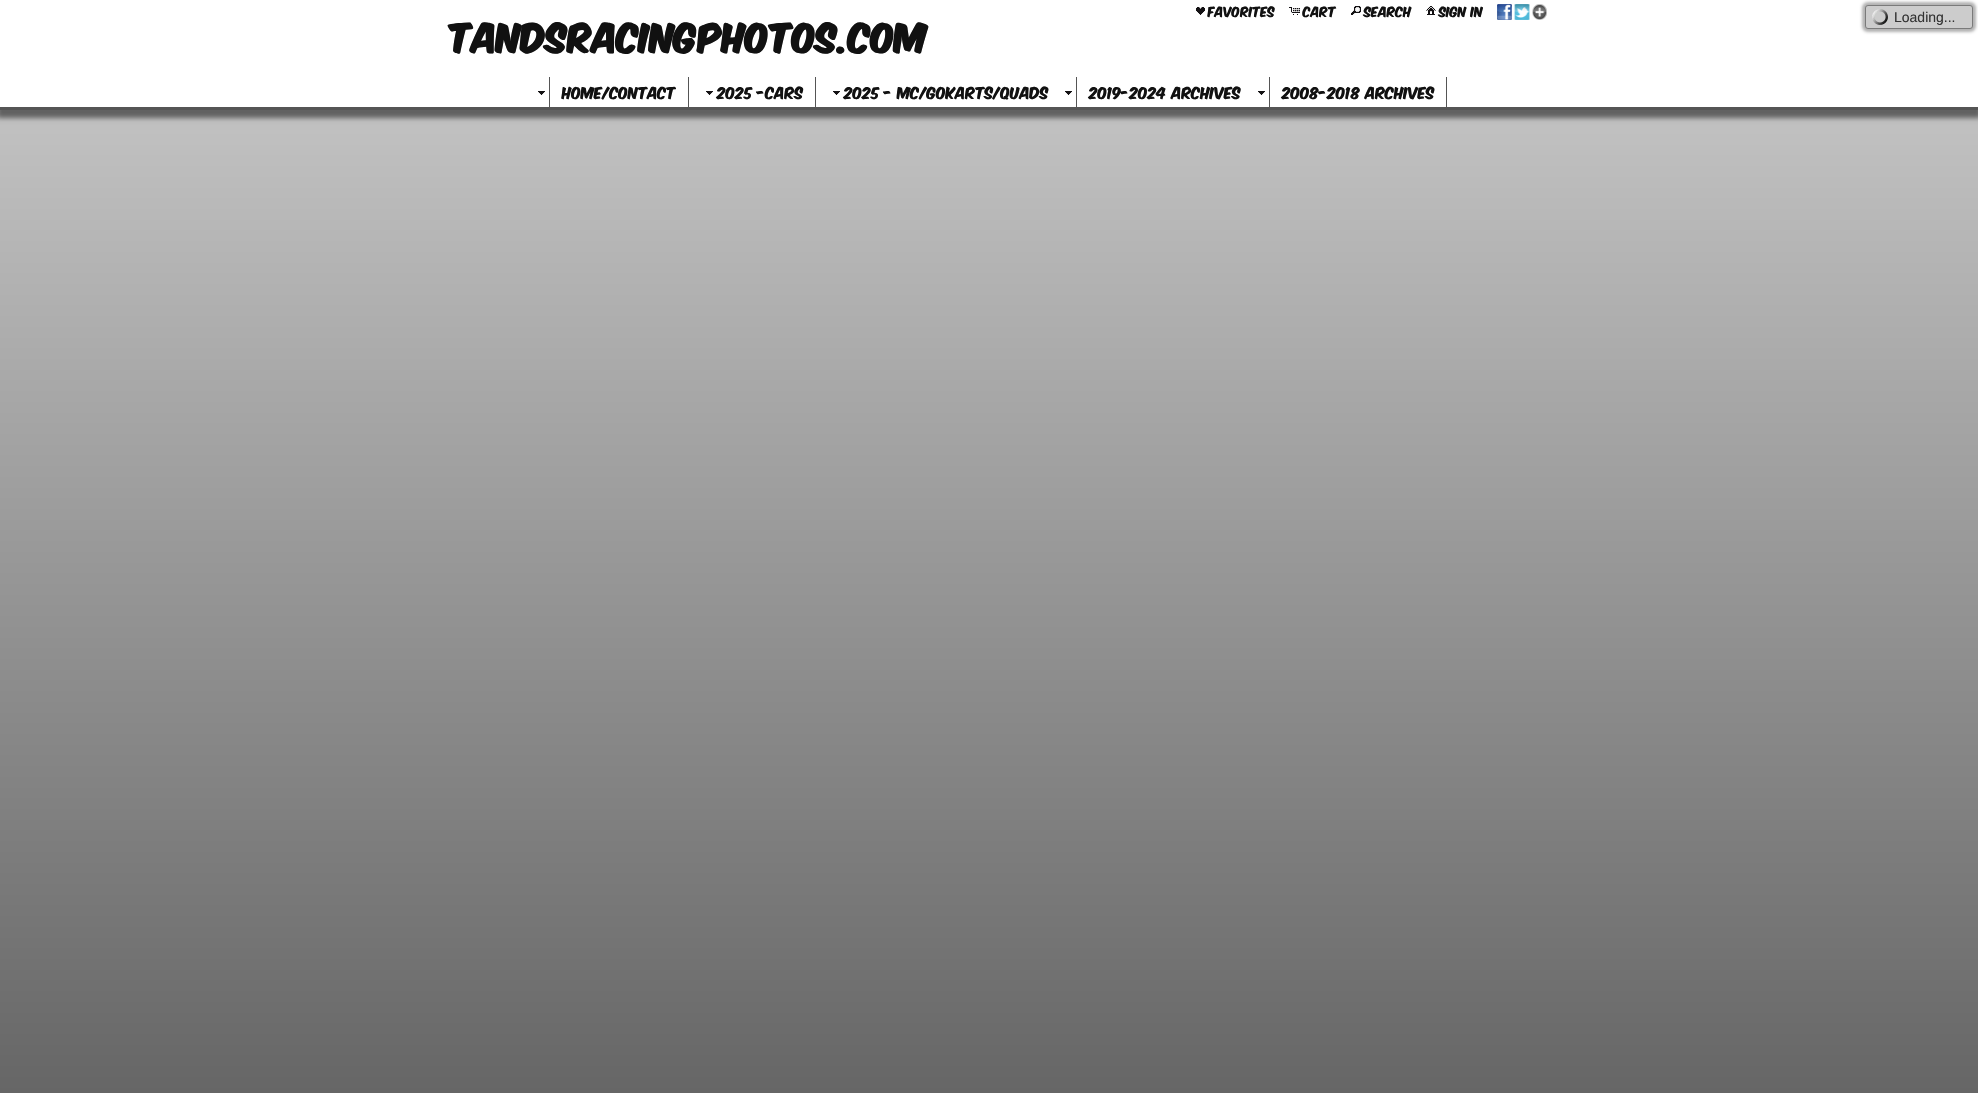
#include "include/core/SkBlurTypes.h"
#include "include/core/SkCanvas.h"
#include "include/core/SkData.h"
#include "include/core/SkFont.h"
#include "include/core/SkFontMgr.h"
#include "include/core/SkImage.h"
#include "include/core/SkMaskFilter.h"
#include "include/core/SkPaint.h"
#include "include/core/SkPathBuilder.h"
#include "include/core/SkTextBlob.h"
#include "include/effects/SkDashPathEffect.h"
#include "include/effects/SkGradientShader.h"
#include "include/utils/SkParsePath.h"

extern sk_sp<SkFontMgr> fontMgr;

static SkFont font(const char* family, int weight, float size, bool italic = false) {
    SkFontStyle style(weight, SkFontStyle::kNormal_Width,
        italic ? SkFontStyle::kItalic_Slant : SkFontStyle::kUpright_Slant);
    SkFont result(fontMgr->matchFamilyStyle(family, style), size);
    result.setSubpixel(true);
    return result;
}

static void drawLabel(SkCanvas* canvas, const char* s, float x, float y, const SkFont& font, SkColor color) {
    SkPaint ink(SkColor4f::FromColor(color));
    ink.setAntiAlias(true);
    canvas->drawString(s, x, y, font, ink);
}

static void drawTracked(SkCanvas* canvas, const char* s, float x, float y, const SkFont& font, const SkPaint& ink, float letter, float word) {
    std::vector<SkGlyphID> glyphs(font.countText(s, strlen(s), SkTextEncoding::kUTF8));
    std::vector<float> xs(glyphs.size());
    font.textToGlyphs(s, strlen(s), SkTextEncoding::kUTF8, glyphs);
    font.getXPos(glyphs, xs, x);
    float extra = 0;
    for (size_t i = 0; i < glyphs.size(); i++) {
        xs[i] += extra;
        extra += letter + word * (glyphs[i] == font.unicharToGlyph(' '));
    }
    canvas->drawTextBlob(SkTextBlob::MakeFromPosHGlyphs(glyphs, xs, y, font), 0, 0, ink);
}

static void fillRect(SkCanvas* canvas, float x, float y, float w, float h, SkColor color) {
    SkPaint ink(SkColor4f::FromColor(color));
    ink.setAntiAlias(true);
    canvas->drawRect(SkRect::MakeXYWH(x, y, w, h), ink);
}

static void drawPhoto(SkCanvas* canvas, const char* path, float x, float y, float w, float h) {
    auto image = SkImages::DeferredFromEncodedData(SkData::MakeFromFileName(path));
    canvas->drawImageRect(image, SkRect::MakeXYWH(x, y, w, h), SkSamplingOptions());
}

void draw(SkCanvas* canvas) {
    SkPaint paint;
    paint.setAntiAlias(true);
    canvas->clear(0xFFFFFFFF);
    {
        const SkColor colors[] = {0xFFCCCCCC, 0xFF666666};
        const float stops[] = {0, 1};
        const SkPoint ends[] = {{989, 0}, {989, 1093}};
        paint.setShader(SkGradientShader::MakeLinear(ends, colors, stops, 2, SkTileMode::kClamp));
        paint.setAlpha(255);
    }
    canvas->drawRect(SkRect::MakeXYWH(0, 110, 1978, 983), paint);
    paint.setShader(nullptr);
    paint.setColor(0x80000000);
    paint.setMaskFilter(SkMaskFilter::MakeBlur(kNormal_SkBlurStyle, 2.5f));
    canvas->drawRect(SkRect::MakeXYWH(-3, 2, 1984, 116), paint);
    paint.setMaskFilter(nullptr);
    fillRect(canvas, 0, 0, 1978, 107, 0xFFFFFFFF);
    fillRect(canvas, 0, 107, 1978, 3, 0xFF555555);
    drawPhoto(canvas, "assets/img1.png", 1196, 7, 9, 8);
    SkFont font1 = font("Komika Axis", 400, 12);
    drawLabel(canvas, "Favorites", 1208, 17, font1, 0xFF111111);
    drawPhoto(canvas, "assets/img2.png", 1289, 7, 11, 8);
    drawLabel(canvas, "Cart", 1303, 17, font1, 0xFF111111);
    drawPhoto(canvas, "assets/img3.png", 1351, 6, 10, 9);
    drawLabel(canvas, "Search", 1364, 17, font1, 0xFF111111);
    drawPhoto(canvas, "assets/img4.png", 1426, 6, 10, 9);
    drawLabel(canvas, "Sign In", 1439, 17, font1, 0xFF111111);
    drawPhoto(canvas, "assets/img5.png", 1497, 4, 50, 16);
    SkFont font2 = font("Komika Axis", 700, 34);
    paint.setColor(0xFF111111);
    drawTracked(canvas, "TANDSRACINGPHOTOS.COM", 449, 53, font2, paint, 0.4f, 0);
    fillRect(canvas, 1446, 77, 1, 30, 0xFF555555);
    drawPhoto(canvas, "assets/img6.png", 538, 91, 7, 4);
    fillRect(canvas, 549, 77, 1, 30, 0xFF555555);
    SkFont font3 = font("Komika Axis", 400, 14);
    drawLabel(canvas, "Home/Contact", 562, 99, font3, 0xFF111111);
    fillRect(canvas, 688, 77, 1, 30, 0xFF555555);
    drawPhoto(canvas, "assets/img6.png", 706, 91, 7, 4);
    drawLabel(canvas, "2025 -Cars", 717, 99, font3, 0xFF111111);
    fillRect(canvas, 815, 77, 1, 30, 0xFF555555);
    drawPhoto(canvas, "assets/img6.png", 833, 91, 7, 4);
    drawLabel(canvas, "2025 - MC/GoKarts/Quads", 844, 99, font3, 0xFF111111);
    drawPhoto(canvas, "assets/img6.png", 1065, 91, 7, 4);
    fillRect(canvas, 1076, 77, 1, 30, 0xFF555555);
    drawLabel(canvas, "2019-2024 Archives", 1089, 99, font3, 0xFF111111);
    drawPhoto(canvas, "assets/img6.png", 1258, 91, 7, 4);
    fillRect(canvas, 1269, 77, 1, 30, 0xFF555555);
    drawLabel(canvas, "2008-2018 Archives", 1282, 99, font3, 0xFF111111);
    paint.setColor(0x4D000000);
    paint.setMaskFilter(SkMaskFilter::MakeBlur(kNormal_SkBlurStyle, 1.5f));
    canvas->drawRoundRect(SkRect::MakeXYWH(1862, 2, 114, 30), 6, 6, paint);
    paint.setMaskFilter(nullptr);
    paint.setColor(0xFFCCCCCC);
    canvas->drawRoundRect(SkRect::MakeXYWH(1865.5f, 5.5f, 107, 23), 2.5f, 2.5f, paint);
    paint.setStroke(true);
    paint.setStrokeWidth(1);
    paint.setColor(0xFF7A7A7A);
    canvas->drawRoundRect(SkRect::MakeXYWH(1865.5f, 5.5f, 107, 23), 2.5f, 2.5f, paint);
    drawPhoto(canvas, "assets/img7.png", 1872, 9, 16, 16);
    SkFont font4 = font("Liberation Sans", 400, 14);
    drawLabel(canvas, "Loading...", 1894, 22, font4, 0xFF333333);
}
